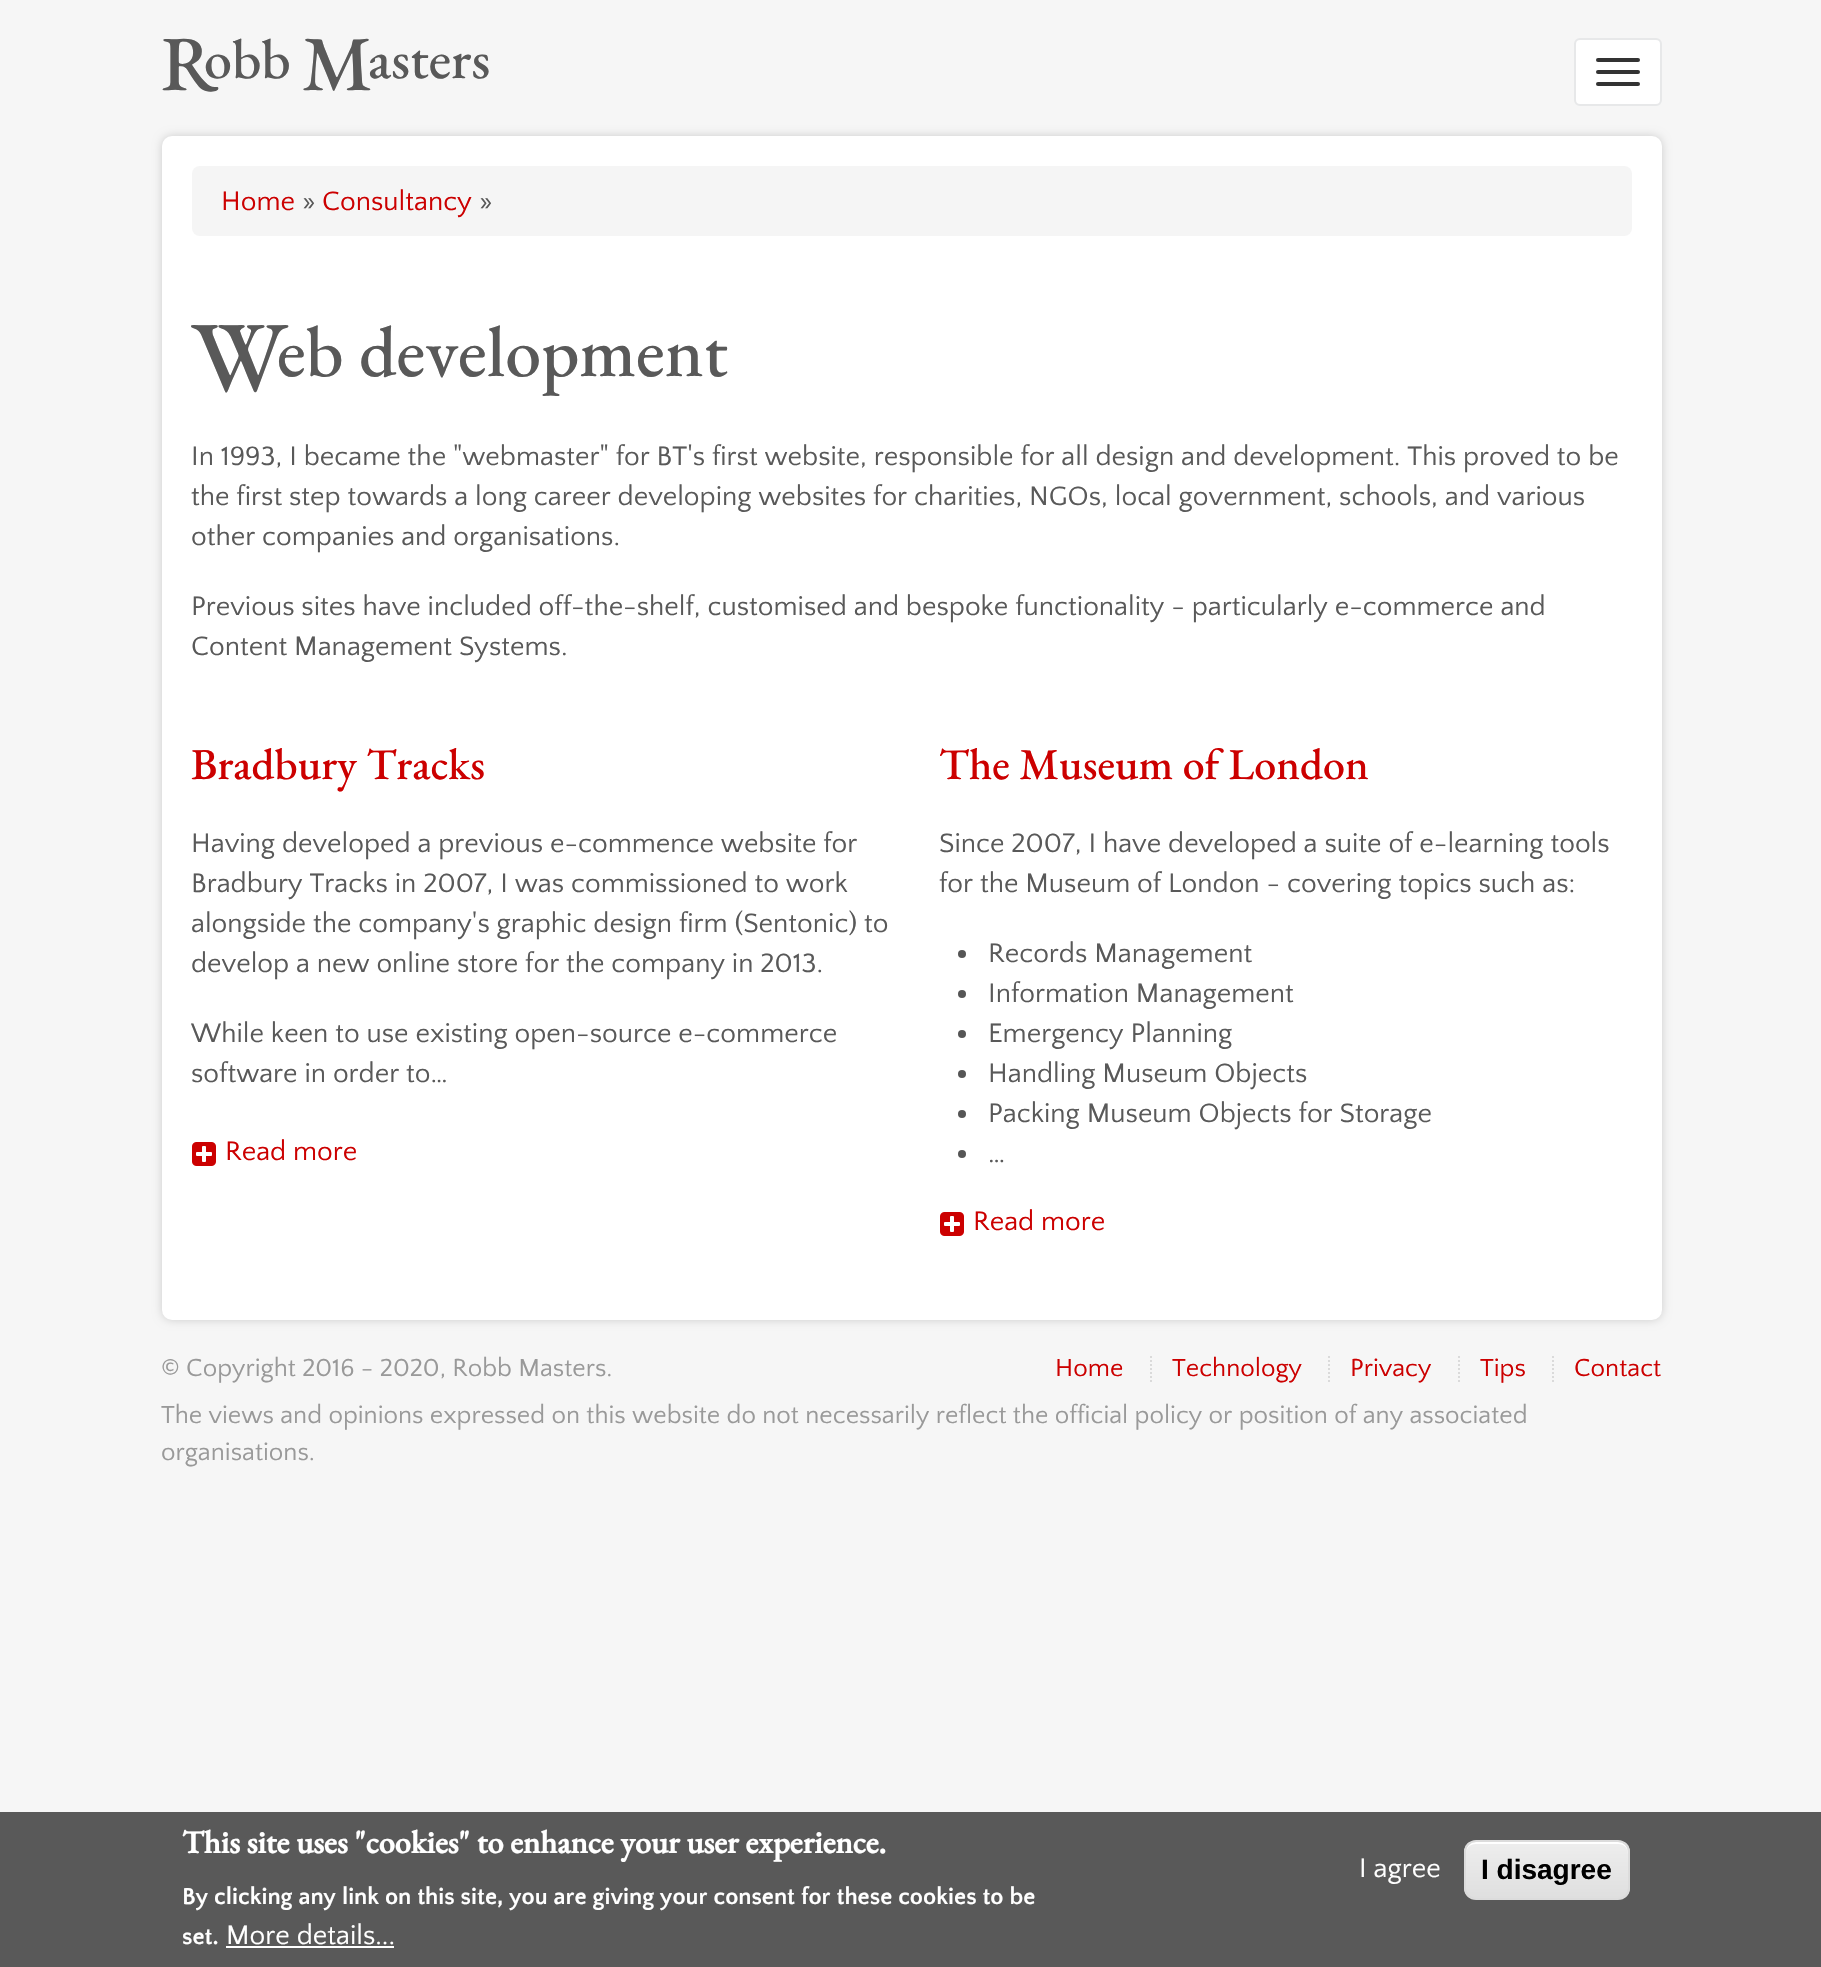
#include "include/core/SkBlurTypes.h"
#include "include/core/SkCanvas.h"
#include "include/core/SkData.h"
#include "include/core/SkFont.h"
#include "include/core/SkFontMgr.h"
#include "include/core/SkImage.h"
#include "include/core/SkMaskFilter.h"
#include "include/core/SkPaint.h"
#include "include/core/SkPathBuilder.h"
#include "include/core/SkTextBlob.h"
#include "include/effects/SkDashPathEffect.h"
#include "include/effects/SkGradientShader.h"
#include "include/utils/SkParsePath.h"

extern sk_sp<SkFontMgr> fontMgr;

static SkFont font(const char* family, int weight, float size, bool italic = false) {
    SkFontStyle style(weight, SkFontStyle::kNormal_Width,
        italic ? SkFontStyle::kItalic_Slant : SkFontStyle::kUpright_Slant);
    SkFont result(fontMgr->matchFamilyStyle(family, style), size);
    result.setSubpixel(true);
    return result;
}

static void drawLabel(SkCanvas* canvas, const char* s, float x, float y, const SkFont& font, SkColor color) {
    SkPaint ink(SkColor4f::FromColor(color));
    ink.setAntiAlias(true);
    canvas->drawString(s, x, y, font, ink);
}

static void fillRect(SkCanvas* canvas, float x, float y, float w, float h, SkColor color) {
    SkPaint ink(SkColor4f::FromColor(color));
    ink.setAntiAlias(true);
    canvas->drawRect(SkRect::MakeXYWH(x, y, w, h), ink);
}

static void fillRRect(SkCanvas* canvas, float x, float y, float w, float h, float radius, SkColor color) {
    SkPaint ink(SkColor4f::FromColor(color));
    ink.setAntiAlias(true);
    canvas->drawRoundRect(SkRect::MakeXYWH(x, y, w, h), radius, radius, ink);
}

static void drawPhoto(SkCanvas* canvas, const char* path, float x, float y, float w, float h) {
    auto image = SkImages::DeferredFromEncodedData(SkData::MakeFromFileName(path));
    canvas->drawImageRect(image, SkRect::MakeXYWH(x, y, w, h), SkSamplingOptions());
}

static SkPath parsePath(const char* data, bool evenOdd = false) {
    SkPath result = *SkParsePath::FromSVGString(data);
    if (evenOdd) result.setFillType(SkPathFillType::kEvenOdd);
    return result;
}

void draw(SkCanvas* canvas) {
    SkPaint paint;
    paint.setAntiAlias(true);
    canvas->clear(0xFFF6F6F6);
    SkFont font1 = font("EB Garamond", 500, 56);
    drawLabel(canvas, "obb", 204, 78, font1, 0xFF595959);
    SkFont font2 = font("EB Garamond", 500, 78);
    drawLabel(canvas, "R", 161, 90, font2, 0xFF595959);
    drawLabel(canvas, "asters", 368, 78, font1, 0xFF595959);
    drawLabel(canvas, "M", 302, 90, font2, 0xFF595959);
    paint.setColor(0xFFFFFFFF);
    canvas->drawRoundRect(SkRect::MakeXYWH(1575, 39, 86, 66), 5, 5, paint);
    paint.setStroke(true);
    paint.setStrokeWidth(2);
    paint.setColor(0xFFE7E8E9);
    canvas->drawRoundRect(SkRect::MakeXYWH(1575, 39, 86, 66), 5, 5, paint);
    fillRRect(canvas, 1596, 58, 44, 4, 2, 0xFF333333);
    fillRRect(canvas, 1596, 70, 44, 4, 2, 0xFF333333);
    fillRRect(canvas, 1596, 82, 44, 4, 2, 0xFF333333);
    paint.setStroke(false);
    paint.setColor(0xFFCCCCCC);
    paint.setMaskFilter(SkMaskFilter::MakeBlur(kNormal_SkBlurStyle, 5));
    canvas->drawRoundRect(SkRect::MakeXYWH(162, 136, 1500, 1184), 10, 10, paint);
    paint.setMaskFilter(nullptr);
    fillRRect(canvas, 162, 136, 1500, 1184, 10, 0xFFFFFFFF);
    fillRRect(canvas, 192, 166, 1440, 70, 8, 0xFFF5F5F5);
    SkFont font3 = font("Quattrocento Sans", 400, 28);
    drawLabel(canvas, "Home", 221, 210, font3, 0xFFCC0000);
    drawLabel(canvas, "»", 302, 210, font3, 0xFF595959);
    drawLabel(canvas, "Consultancy", 322, 210, font3, 0xFFCC0000);
    drawLabel(canvas, "»", 479, 210, font3, 0xFF595959);
    SkFont font4 = font("EB Garamond", 500, 72);
    drawLabel(canvas, "eb development", 277, 376, font4, 0xFF595959);
    SkFont font5 = font("EB Garamond", 500, 101);
    drawLabel(canvas, "W", 191, 391, font5, 0xFF595959);
    drawLabel(canvas, "In 1993, I became the \"webmaster\" for BT's first website, responsible for all design and development. This proved to be", 191, 465, font3, 0xFF595959);
    drawLabel(canvas, "the first step towards a long career developing websites for charities, NGOs, local government, schools, and various", 191, 505, font3, 0xFF595959);
    drawLabel(canvas, "other companies and organisations.", 191, 545, font3, 0xFF595959);
    drawLabel(canvas, "Previous sites have included off-the-shelf, customised and bespoke functionality - particularly e-commerce and", 191, 615, font3, 0xFF595959);
    drawLabel(canvas, "Content Management Systems.", 191, 655, font3, 0xFF595959);
    SkFont font6 = font("EB Garamond", 500, 44);
    drawLabel(canvas, "Bradbury Tracks", 191, 779, font6, 0xFFCC0000);
    drawLabel(canvas, "Having developed a previous e-commence website for", 191, 852, font3, 0xFF595959);
    drawLabel(canvas, "Bradbury Tracks in 2007, I was commissioned to work", 191, 892, font3, 0xFF595959);
    drawLabel(canvas, "alongside the company's graphic design firm (Sentonic) to", 191, 932, font3, 0xFF595959);
    drawLabel(canvas, "develop a new online store for the company in 2013.", 191, 972, font3, 0xFF595959);
    drawLabel(canvas, "While keen to use existing open-source e-commerce", 191, 1042, font3, 0xFF595959);
    drawLabel(canvas, "software in order to…", 191, 1082, font3, 0xFF595959);
    drawPhoto(canvas, "assets/img1.png", 192, 1142, 24, 24);
    drawLabel(canvas, "Read more", 225, 1160, font3, 0xFFCC0000);
    drawLabel(canvas, "The Museum of London", 939, 779, font6, 0xFFCC0000);
    drawLabel(canvas, "Since 2007, I have developed a suite of e-learning tools", 939, 852, font3, 0xFF595959);
    drawLabel(canvas, "for the Museum of London - covering topics such as:", 939, 892, font3, 0xFF595959);
    paint.setColor(0xFF555555);
    canvas->drawCircle(962, 954, 4, paint);
    drawLabel(canvas, "Records Management", 988, 962, font3, 0xFF595959);
    canvas->drawCircle(962, 994, 4, paint);
    drawLabel(canvas, "Information Management", 988, 1002, font3, 0xFF595959);
    canvas->drawCircle(962, 1034, 4, paint);
    drawLabel(canvas, "Emergency Planning", 988, 1042, font3, 0xFF595959);
    canvas->drawCircle(962, 1074, 4, paint);
    drawLabel(canvas, "Handling Museum Objects", 988, 1082, font3, 0xFF595959);
    canvas->drawCircle(962, 1114, 4, paint);
    drawLabel(canvas, "Packing Museum Objects for Storage", 988, 1122, font3, 0xFF595959);
    canvas->drawCircle(962, 1154, 4, paint);
    drawLabel(canvas, "…", 988, 1162, font3, 0xFF595959);
    drawPhoto(canvas, "assets/img1.png", 940, 1212, 24, 24);
    drawLabel(canvas, "Read more", 973, 1230, font3, 0xFFCC0000);
    SkFont font7 = font("Quattrocento Sans", 400, 25.85f);
    drawLabel(canvas, "© Copyright 2016 - 2020, Robb Masters.", 161, 1376, font7, 0xFF999999);
    drawLabel(canvas, "Home", 1055, 1376, font7, 0xFFCC0000);
    paint.setStroke(true);
    paint.setColor(0xFFDADADA);
    paint.setPathEffect(SkDashPathEffect::Make({{2, 2}}, 0));
    canvas->drawPath(parsePath("M1151 1356V1382"), paint);
    paint.setPathEffect(nullptr);
    drawLabel(canvas, "Technology", 1172, 1376, font7, 0xFFCC0000);
    paint.setPathEffect(SkDashPathEffect::Make({{2, 2}}, 0));
    canvas->drawPath(parsePath("M1329 1356V1382"), paint);
    paint.setPathEffect(nullptr);
    drawLabel(canvas, "Privacy", 1350, 1376, font7, 0xFFCC0000);
    paint.setPathEffect(SkDashPathEffect::Make({{2, 2}}, 0));
    canvas->drawPath(parsePath("M1459 1356V1382"), paint);
    paint.setPathEffect(nullptr);
    drawLabel(canvas, "Tips", 1480, 1376, font7, 0xFFCC0000);
    paint.setPathEffect(SkDashPathEffect::Make({{2, 2}}, 0));
    canvas->drawPath(parsePath("M1553 1356V1382"), paint);
    paint.setPathEffect(nullptr);
    drawLabel(canvas, "Contact", 1574, 1376, font7, 0xFFCC0000);
    drawLabel(canvas, "The views and opinions expressed on this website do not necessarily reflect the official policy or position of any associated", 161, 1423, font7, 0xFF999999);
    drawLabel(canvas, "organisations.", 161, 1460, font7, 0xFF999999);
    fillRect(canvas, 0, 1812, 1821, 155, 0xFF595959);
    SkFont font8 = font("EB Garamond", 700, 32);
    drawLabel(canvas, "This site uses \"cookies\" to enhance your user experience.", 182, 1853, font8, 0xFFFFFFFF);
    SkFont font9 = font("Quattrocento Sans", 700, 24);
    drawLabel(canvas, "By clicking any link on this site, you are giving your consent for these cookies to be", 182, 1904, font9, 0xFFFFFFFF);
    drawLabel(canvas, "set.", 182, 1944, font9, 0xFFFFFFFF);
    drawLabel(canvas, "More details...", 226, 1944, font3, 0xFFFFFFFF);
    fillRect(canvas, 226, 1946, 168, 2, 0xFFFFFFFF);
    drawLabel(canvas, "I agree", 1359, 1877, font3, 0xFFFFFFFF);
    canvas->save();
    canvas->clipPath(parsePath("M1476 1840H1618C1624.5 1840 1630 1845.5 1630 1852V1888C1630 1894.5 1624.5 1900 1618 1900H1476C1469.5 1900 1464 1894.5 1464 1888V1852C1464 1845.5 1469.5 1840 1476 1840Z"), true);
    paint.setStroke(false);
    {
        const SkColor colors[] = {0xFFEDEDED, 0xFFDFDFDF};
        const float stops[] = {0.05f, 1};
        const SkPoint ends[] = {{1547, 1842}, {1547, 1898}};
        paint.setShader(SkGradientShader::MakeLinear(ends, colors, stops, 2, SkTileMode::kClamp));
        paint.setAlpha(255);
    }
    canvas->drawRect(SkRect::MakeXYWH(1464, 1842, 166, 56), paint);
    canvas->restore();
    paint.setShader(nullptr);
    paint.setColor(0xFFFFFFFF);
    canvas->drawPath(parsePath("M1476 1844H1618C1624 1844 1628 1848 1628 1854V1852C1628 1846 1624 1842 1618 1842H1476C1470 1842 1466 1846 1466 1852V1854C1466 1848 1470 1844 1476 1844Z"), paint);
    paint.setStroke(true);
    paint.setColor(0xFFDCDCDC);
    canvas->drawRoundRect(SkRect::MakeXYWH(1465, 1841, 164, 58), 11, 11, paint);
    SkFont font10 = font("Liberation Sans", 700, 28);
    drawLabel(canvas, "I disagree", 1481, 1879, font10, 0xFF000000);
}
